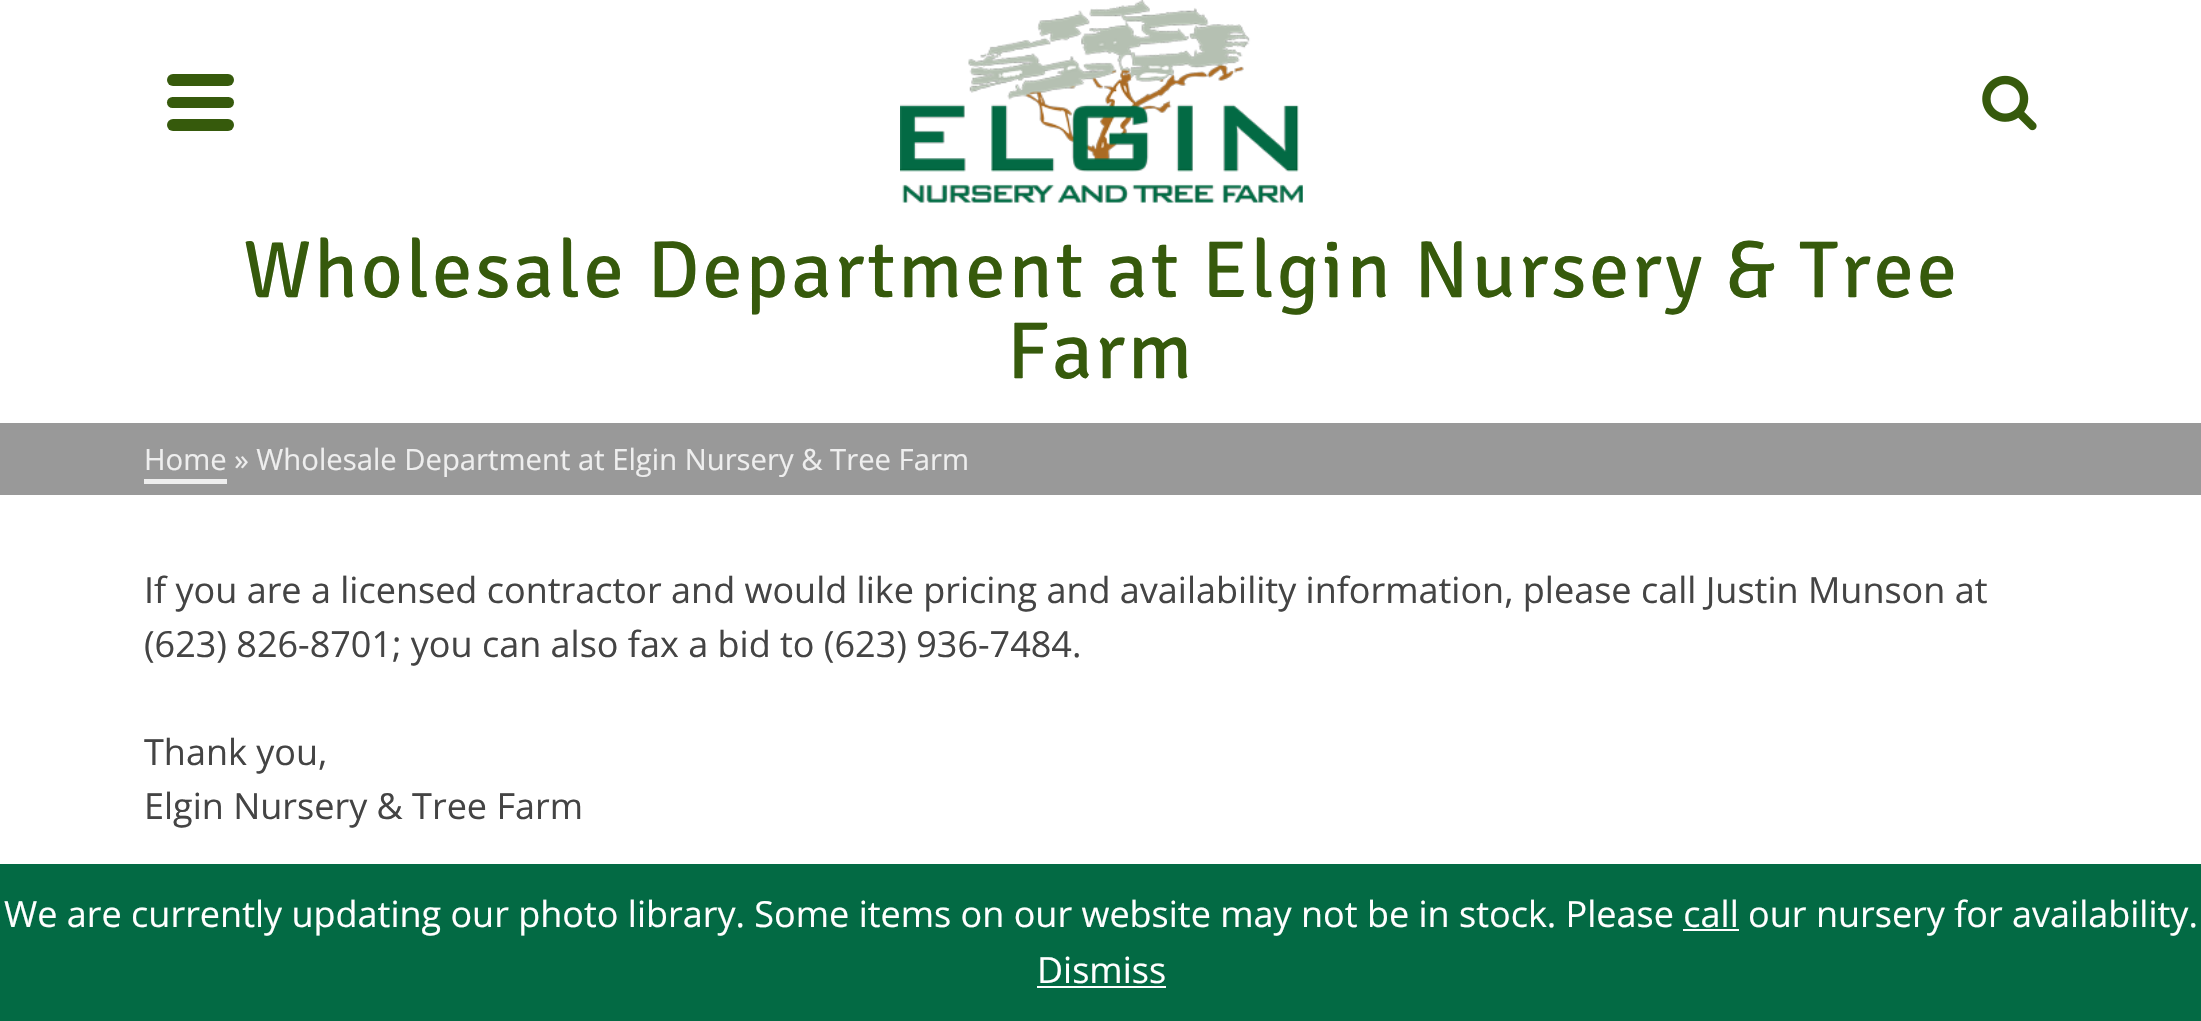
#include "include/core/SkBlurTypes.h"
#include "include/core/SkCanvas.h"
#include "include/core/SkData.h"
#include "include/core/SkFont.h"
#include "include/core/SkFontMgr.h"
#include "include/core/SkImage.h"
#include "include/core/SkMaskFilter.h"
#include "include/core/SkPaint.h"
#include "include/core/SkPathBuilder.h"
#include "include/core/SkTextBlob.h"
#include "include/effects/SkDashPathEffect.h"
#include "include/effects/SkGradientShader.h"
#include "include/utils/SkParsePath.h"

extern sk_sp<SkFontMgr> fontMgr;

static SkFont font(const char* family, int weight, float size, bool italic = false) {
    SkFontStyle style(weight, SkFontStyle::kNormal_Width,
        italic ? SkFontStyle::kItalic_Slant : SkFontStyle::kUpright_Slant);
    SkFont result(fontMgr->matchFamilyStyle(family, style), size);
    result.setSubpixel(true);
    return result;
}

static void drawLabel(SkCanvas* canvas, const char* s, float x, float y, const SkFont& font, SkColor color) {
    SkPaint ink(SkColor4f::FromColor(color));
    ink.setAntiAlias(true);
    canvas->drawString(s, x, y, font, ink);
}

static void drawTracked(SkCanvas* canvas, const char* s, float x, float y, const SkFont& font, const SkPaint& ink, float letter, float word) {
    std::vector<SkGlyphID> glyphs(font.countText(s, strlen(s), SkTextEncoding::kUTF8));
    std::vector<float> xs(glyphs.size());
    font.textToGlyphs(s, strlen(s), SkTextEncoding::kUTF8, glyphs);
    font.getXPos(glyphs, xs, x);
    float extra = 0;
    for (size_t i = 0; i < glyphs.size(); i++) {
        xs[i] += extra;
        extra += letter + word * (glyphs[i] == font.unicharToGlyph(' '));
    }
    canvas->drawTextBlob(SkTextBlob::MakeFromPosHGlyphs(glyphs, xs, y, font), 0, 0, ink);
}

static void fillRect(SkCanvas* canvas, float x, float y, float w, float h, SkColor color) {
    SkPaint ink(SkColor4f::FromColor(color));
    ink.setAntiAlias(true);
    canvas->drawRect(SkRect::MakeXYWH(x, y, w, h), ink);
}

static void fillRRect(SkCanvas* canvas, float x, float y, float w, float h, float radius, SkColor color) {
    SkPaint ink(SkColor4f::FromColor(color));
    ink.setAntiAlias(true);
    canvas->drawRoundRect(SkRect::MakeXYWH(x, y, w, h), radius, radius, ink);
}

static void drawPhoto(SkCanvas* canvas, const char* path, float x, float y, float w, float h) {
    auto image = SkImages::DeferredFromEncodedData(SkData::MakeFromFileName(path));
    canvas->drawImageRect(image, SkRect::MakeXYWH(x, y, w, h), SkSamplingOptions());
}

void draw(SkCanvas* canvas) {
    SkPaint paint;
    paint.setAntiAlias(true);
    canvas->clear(0xFFFFFFFF);
    fillRRect(canvas, 167, 74, 67, 12, 6, 0xFF365A0C);
    fillRRect(canvas, 167, 97, 67, 11, 5.5f, 0xFF365A0C);
    fillRRect(canvas, 167, 119, 67, 12, 6, 0xFF365A0C);
    drawPhoto(canvas, "assets/img1.png", 900, 0, 403, 203);
    drawPhoto(canvas, "assets/img2.png", 1982, 75, 55, 56);
    SkFont font1 = font("Signika Negative", 300, 81);
    paint.setColor(0xFF365A0C);
    drawTracked(canvas, "Wholesale Department at Elgin Nursery & Tree", 243, 297, font1, paint, 2.7f, 0);
    drawTracked(canvas, "Farm", 1007, 378, font1, paint, 2.7f, 0);
    fillRect(canvas, 0, 423, 2201, 72, 0xFF999999);
    SkFont font2 = font("Open Sans", 400, 29.25f);
    drawLabel(canvas, "Home » Wholesale Department at Elgin Nursery & Tree Farm", 144, 470, font2, 0xFFEEEEEE);
    fillRect(canvas, 144, 479, 83, 5, 0xFFEEEEEE);
    SkFont font3 = font("Open Sans", 400, 36);
    drawLabel(canvas, "If you are a licensed contractor and would like pricing and availability information, please call Justin Munson at", 144, 603, font3, 0xFF444444);
    drawLabel(canvas, "(623) 826-8701; you can also fax a bid to (623) 936-7484.", 144, 657, font3, 0xFF444444);
    drawLabel(canvas, "Thank you,", 144, 765, font3, 0xFF444444);
    drawLabel(canvas, "Elgin Nursery & Tree Farm", 144, 819, font3, 0xFF444444);
    fillRect(canvas, 0, 864, 2201, 157, 0xFF036A44);
    drawLabel(canvas, "We are currently updating our photo library. Some items on our website may not be in stock. Please call our nursery for availability.", 4, 927, font3, 0xFFFFFFFF);
    fillRect(canvas, 1683, 929, 56, 2, 0xFFFFFFFF);
    drawLabel(canvas, "Dismiss", 1037, 983, font3, 0xFFFFFFFF);
    fillRect(canvas, 1037, 986, 129, 2, 0xFFFFFFFF);
}
